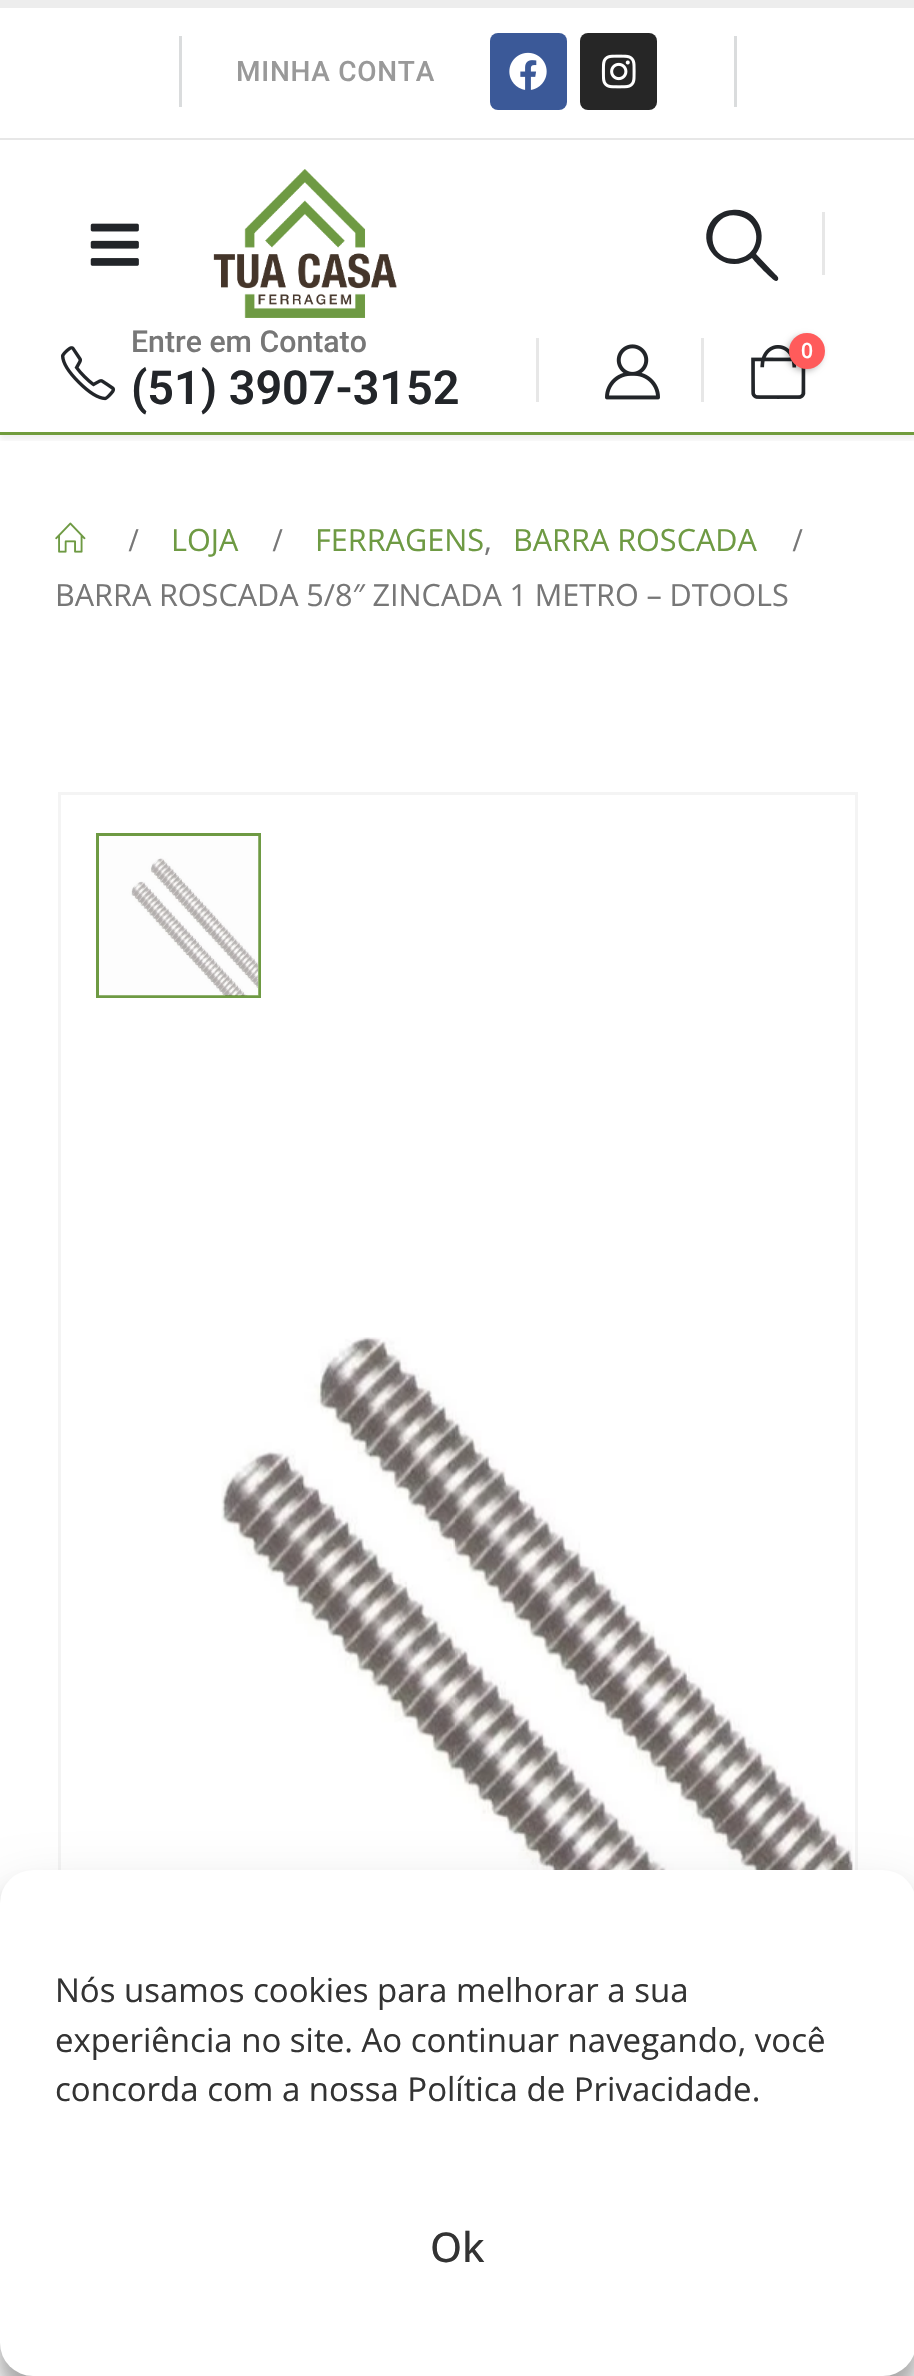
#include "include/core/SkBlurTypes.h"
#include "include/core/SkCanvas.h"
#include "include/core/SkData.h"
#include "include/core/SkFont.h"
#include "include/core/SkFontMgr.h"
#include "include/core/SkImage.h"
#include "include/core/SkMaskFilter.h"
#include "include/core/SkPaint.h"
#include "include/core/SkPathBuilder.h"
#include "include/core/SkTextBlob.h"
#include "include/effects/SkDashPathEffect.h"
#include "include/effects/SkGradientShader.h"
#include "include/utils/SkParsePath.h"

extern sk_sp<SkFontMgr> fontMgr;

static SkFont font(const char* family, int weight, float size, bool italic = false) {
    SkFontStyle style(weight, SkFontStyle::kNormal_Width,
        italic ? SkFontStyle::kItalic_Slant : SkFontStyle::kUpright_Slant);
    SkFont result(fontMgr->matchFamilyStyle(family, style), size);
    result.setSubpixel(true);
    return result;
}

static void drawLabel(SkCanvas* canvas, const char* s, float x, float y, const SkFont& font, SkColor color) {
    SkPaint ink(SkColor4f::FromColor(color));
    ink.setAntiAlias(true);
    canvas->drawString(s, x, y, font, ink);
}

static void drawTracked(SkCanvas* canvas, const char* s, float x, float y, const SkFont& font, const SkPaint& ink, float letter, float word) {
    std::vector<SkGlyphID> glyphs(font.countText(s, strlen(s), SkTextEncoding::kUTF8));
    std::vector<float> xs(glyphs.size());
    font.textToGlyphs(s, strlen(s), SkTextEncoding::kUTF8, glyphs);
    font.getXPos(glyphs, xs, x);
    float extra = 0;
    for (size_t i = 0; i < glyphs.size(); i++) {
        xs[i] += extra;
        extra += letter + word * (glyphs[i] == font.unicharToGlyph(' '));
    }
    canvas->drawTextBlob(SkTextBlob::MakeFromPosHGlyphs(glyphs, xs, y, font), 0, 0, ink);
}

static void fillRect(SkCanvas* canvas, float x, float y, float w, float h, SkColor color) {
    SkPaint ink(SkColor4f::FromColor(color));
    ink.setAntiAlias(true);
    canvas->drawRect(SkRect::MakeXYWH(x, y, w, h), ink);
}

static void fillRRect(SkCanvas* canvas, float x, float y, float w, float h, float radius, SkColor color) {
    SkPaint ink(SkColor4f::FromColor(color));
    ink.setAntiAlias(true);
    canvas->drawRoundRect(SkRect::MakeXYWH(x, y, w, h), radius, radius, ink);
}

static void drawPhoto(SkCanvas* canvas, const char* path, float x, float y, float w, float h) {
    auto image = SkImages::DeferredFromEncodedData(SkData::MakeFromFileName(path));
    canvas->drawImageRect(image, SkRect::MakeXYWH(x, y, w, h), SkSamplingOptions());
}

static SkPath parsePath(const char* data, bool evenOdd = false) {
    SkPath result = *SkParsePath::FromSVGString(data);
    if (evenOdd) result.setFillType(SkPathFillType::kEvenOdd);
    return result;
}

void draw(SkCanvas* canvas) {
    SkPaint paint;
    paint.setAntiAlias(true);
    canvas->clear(0xFFFFFFFF);
    canvas->save();
    canvas->clipRect(SkRect::MakeXYWH(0, 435, 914, 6));
    paint.setColor(0x0F000000);
    paint.setMaskFilter(SkMaskFilter::MakeBlur(kNormal_SkBlurStyle, 3));
    canvas->drawRect(SkRect::MakeXYWH(0, 6, 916, 434), paint);
    paint.setMaskFilter(nullptr);
    canvas->restore();
    fillRect(canvas, 0, 0, 914, 8, 0xFFEDEDED);
    fillRect(canvas, 0, 138, 914, 2, 0xFFE7E7E7);
    fillRect(canvas, 179, 36, 3, 71, 0xFFDADCDD);
    SkFont font1 = font("Roboto", 500, 28);
    paint.setColor(0xFF999999);
    drawTracked(canvas, "MINHA CONTA", 236, 81, font1, paint, 0.75f, 0);
    fillRRect(canvas, 490, 33, 77, 77, 8, 0xFF3B5998);
    drawPhoto(canvas, "assets/img1.png", 509, 52, 38, 38);
    fillRRect(canvas, 580, 33, 77, 77, 8, 0xFF262626);
    drawPhoto(canvas, "assets/img2.png", 601, 54, 35, 35);
    fillRect(canvas, 734, 36, 3, 71, 0xFFDADCDD);
    drawPhoto(canvas, "assets/img3.png", 90, 223, 49, 43);
    drawPhoto(canvas, "assets/img4.png", 213, 169, 184, 149);
    paint.setColor(0xFF222529);
    canvas->drawPath(parsePath("M732 210C725 210 718 214 713 219C692 244 724 278 752 258C754 261 773 281 776 281C776 281 777 281 778 280C779 277 777 276 775 274L756 254C770 235 757 207 732 210ZM739 216C754 219 761 236 753 249C749 255 743 258 736 259C731 259 725 258 721 255C703 241 716 210 739 216Z"), paint);
    fillRect(canvas, 822, 212, 3, 63, 0xFFE7E7E7);
    drawPhoto(canvas, "assets/img5.png", 61, 346, 55, 55);
    SkFont font2 = font("Roboto", 500, 30.25f);
    drawLabel(canvas, "Entre em Contato", 131, 352, font2, 0xFF777777);
    SkFont font3 = font("Roboto", 600, 46.75f);
    drawLabel(canvas, "(51) 3907-3152", 131, 404, font3, 0xFF222529);
    fillRect(canvas, 536, 338, 3, 64, 0xFFE7E7E7);
    drawPhoto(canvas, "assets/img6.png", 605, 344, 55, 56);
    fillRect(canvas, 701, 338, 3, 64, 0xFFE7E7E7);
    drawPhoto(canvas, "assets/img7.png", 751, 345, 55, 54);
    paint.setColor(0x4D000000);
    paint.setMaskFilter(SkMaskFilter::MakeBlur(kNormal_SkBlurStyle, 3));
    canvas->drawRoundRect(SkRect::MakeXYWH(787, 336, 35, 35), 17.5f, 17.5f, paint);
    paint.setMaskFilter(nullptr);
    paint.setColor(0xFFFF5B5B);
    canvas->drawCircle(807, 351, 18, paint);
    SkFont font4 = font("Open Sans", 600, 21);
    drawLabel(canvas, "0", 801, 358, font4, 0xFFFFFFFF);
    fillRect(canvas, 0, 432, 914, 3, 0xFF719C3D);
    drawPhoto(canvas, "assets/img8.png", 55, 522, 31, 31);
    SkFont font5 = font("Liberation Serif", 700, 33);
    drawLabel(canvas, "/", 129, 551, font5, 0xFF777777);
    SkFont font6 = font("Open Sans", 400, 30.6f);
    drawLabel(canvas, "LOJA", 171, 551, font6, 0xFF6E9A43);
    drawLabel(canvas, "/", 273, 551, font5, 0xFF777777);
    drawLabel(canvas, "FERRAGENS", 315, 551, font6, 0xFF6E9A43);
    drawLabel(canvas, ",", 484, 551, font6, 0xFF777777);
    drawLabel(canvas, "BARRA ROSCADA", 513, 551, font6, 0xFF6E9A43);
    drawLabel(canvas, "/", 793, 551, font5, 0xFF777777);
    paint.setColor(0xFF777777);
    drawTracked(canvas, "BARRA ROSCADA 5/8″ ZINCADA 1 METRO – DTOOLS", 55, 606, font6, paint, 0, -0.25f);
    paint.setStroke(true);
    paint.setStrokeWidth(3);
    paint.setColor(0xFFF4F4F4);
    canvas->drawRect(SkRect::MakeXYWH(59.5f, 793.5f, 797, 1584), paint);
    drawPhoto(canvas, "assets/img9.png", 221, 1337, 632, 533);
    paint.setStroke(false);
    paint.setColor(0xFFFAFAFA);
    canvas->drawRect(SkRect::MakeXYWH(97.5f, 834.5f, 162, 162), paint);
    paint.setStroke(true);
    paint.setColor(0xFF6E9A43);
    canvas->drawRect(SkRect::MakeXYWH(97.5f, 834.5f, 162, 162), paint);
    drawPhoto(canvas, "assets/img10.png", 99, 836, 160, 160);
    paint.setStroke(false);
    paint.setColor(0x3B000000);
    paint.setMaskFilter(SkMaskFilter::MakeBlur(kNormal_SkBlurStyle, 8));
    canvas->drawRoundRect(SkRect::MakeXYWH(0, 1887, 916, 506), 33, 33, paint);
    paint.setMaskFilter(nullptr);
    paint.setColor(0x30000000);
    paint.setMaskFilter(SkMaskFilter::MakeBlur(kNormal_SkBlurStyle, 27.5f));
    canvas->drawRoundRect(SkRect::MakeXYWH(0, 1898, 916, 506), 33, 33, paint);
    paint.setMaskFilter(nullptr);
    fillRRect(canvas, 0, 1870, 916, 506, 33, 0xFFFFFFFF);
    SkFont font7 = font("Open Sans", 400, 33);
    drawLabel(canvas, "Nós usamos cookies para melhorar a sua", 55, 2002, font7, 0xFF333333);
    drawLabel(canvas, "experiência no site. Ao continuar navegando, você", 55, 2052, font7, 0xFF333333);
    drawLabel(canvas, "concorda com a nossa Política de Privacidade.", 55, 2101, font7, 0xFF333333);
    SkFont font8 = font("Open Sans", 500, 41);
    drawLabel(canvas, "Ok", 430, 2262, font8, 0xFF333333);
}
